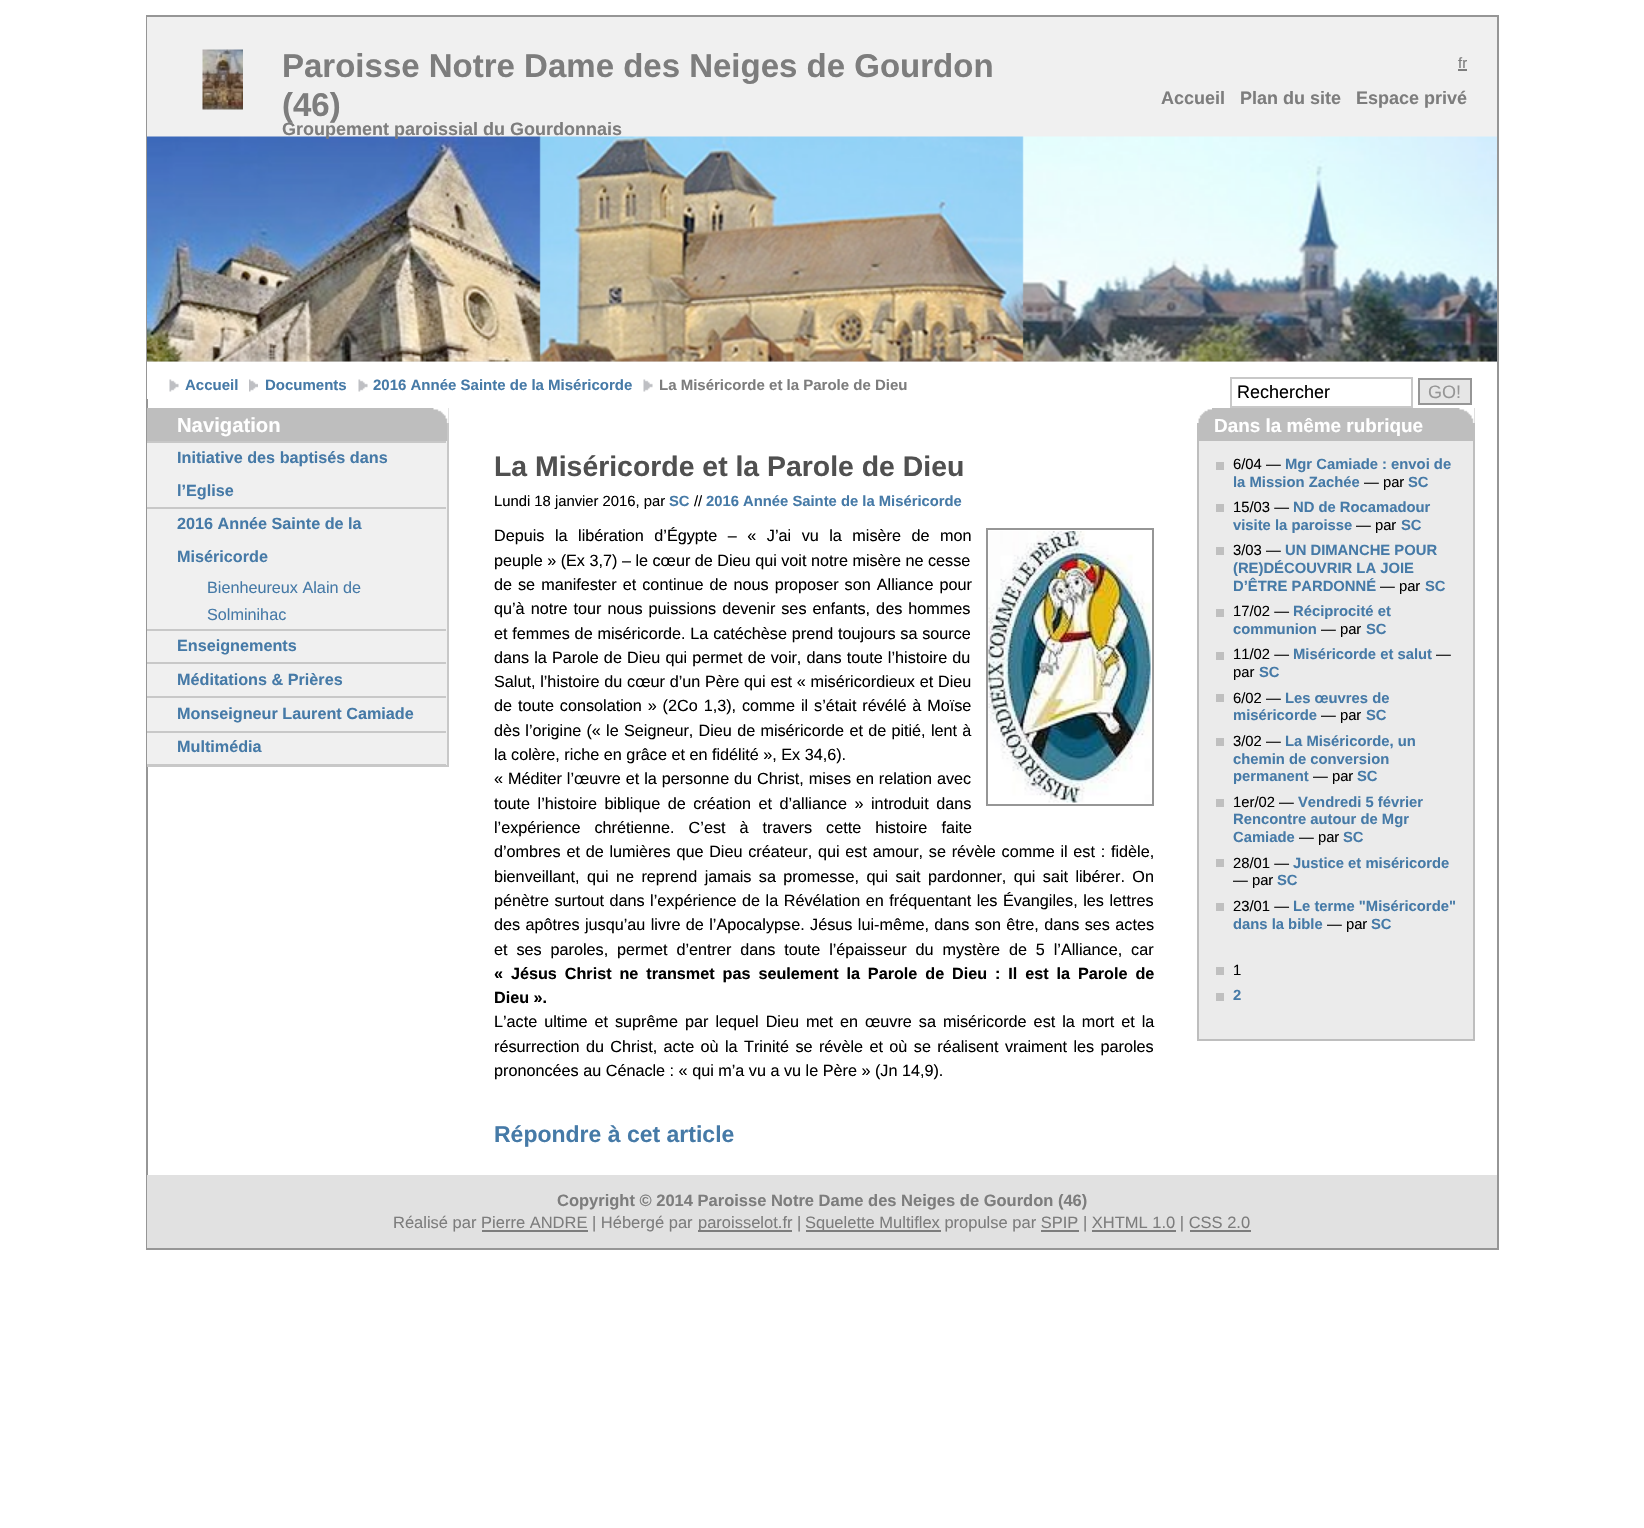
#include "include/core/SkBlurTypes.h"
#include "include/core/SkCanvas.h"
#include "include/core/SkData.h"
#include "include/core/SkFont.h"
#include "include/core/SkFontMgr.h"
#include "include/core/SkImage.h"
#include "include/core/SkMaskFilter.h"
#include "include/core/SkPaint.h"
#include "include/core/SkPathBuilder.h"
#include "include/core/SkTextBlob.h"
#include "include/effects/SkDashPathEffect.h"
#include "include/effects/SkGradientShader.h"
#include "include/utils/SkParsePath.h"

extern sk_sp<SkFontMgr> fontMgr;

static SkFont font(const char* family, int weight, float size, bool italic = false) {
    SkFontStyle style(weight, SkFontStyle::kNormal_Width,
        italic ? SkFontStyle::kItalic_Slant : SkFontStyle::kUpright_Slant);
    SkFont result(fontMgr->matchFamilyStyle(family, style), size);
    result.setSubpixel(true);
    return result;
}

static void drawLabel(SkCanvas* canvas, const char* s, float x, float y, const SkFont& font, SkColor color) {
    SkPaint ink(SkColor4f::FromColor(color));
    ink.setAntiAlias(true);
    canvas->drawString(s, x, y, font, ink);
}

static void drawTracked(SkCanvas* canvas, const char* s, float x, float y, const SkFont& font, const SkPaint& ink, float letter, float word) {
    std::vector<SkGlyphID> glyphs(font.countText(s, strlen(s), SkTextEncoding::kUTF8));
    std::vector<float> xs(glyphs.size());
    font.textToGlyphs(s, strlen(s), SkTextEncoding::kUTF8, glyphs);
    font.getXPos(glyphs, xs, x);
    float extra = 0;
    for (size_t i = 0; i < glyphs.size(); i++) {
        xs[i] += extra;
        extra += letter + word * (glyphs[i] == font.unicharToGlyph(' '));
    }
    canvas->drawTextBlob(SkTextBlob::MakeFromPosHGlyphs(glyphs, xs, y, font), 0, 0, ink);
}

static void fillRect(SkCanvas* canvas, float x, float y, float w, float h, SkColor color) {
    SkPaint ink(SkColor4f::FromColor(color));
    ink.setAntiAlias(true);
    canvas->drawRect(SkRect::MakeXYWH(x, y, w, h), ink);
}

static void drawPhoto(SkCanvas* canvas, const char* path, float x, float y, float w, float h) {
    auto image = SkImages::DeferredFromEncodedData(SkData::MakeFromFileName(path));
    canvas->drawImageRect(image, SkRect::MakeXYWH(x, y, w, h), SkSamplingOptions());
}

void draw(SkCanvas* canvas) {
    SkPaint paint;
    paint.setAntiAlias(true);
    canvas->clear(0xFFFFFFFF);
    paint.setStroke(true);
    paint.setStrokeWidth(2);
    paint.setColor(0xFF969696);
    canvas->drawRect(SkRect::MakeXYWH(147, 16, 1351, 1233), paint);
    fillRect(canvas, 147, 17, 1350, 120, 0xFFF0F0F0);
    drawPhoto(canvas, "assets/img1.png", 202, 49, 41, 61);
    SkFont font1 = font("Liberation Sans", 700, 33);
    drawLabel(canvas, "Paroisse Notre Dame des Neiges de Gourdon", 282, 77, font1, 0xFF7D7D7D);
    drawLabel(canvas, "(46)", 282, 116, font1, 0xFF7D7D7D);
    fillRect(canvas, 147, 361, 1350, 1, 0xFFE6E6E6);
    drawPhoto(canvas, "assets/img2.png", 147, 136, 1350, 226);
    SkFont font2 = font("Liberation Sans", 700, 18);
    drawLabel(canvas, "Groupement paroissial du Gourdonnais", 282, 135, font2, 0xFF7D7D7D);
    SkFont font3 = font("Liberation Sans", 400, 15);
    drawLabel(canvas, "fr", 1458, 68, font3, 0xFF7D7D7D);
    fillRect(canvas, 1458, 69, 9, 2, 0xFF7D7D7D);
    drawLabel(canvas, "Accueil", 1161, 104, font2, 0xFF7D7D7D);
    drawLabel(canvas, "Plan du site", 1240, 104, font2, 0xFF7D7D7D);
    drawLabel(canvas, "Espace privé", 1356, 104, font2, 0xFF7D7D7D);
    fillRect(canvas, 147, 362, 1, 37, 0xFFFFFFFF);
    drawPhoto(canvas, "assets/img3.png", 169, 379, 10, 13);
    SkFont font4 = font("Liberation Sans", 700, 15);
    drawLabel(canvas, "Accueil", 185, 390, font4, 0xFF467AA7);
    drawPhoto(canvas, "assets/img4.png", 249, 379, 9, 13);
    drawLabel(canvas, "Documents", 265, 390, font4, 0xFF467AA7);
    drawPhoto(canvas, "assets/img5.png", 358, 379, 10, 13);
    drawLabel(canvas, "2016 Année Sainte de la Miséricorde", 373, 390, font4, 0xFF467AA7);
    drawPhoto(canvas, "assets/img5.png", 643, 379, 10, 13);
    drawLabel(canvas, "La Miséricorde et la Parole de Dieu", 659, 390, font4, 0xFF7D7D7D);
    paint.setColor(0xFFC8C8C8);
    canvas->drawRect(SkRect::MakeXYWH(1231, 378, 181, 29), paint);
    SkFont font5 = font("Liberation Sans", 400, 18);
    drawLabel(canvas, "Rechercher", 1237, 398, font5, 0xFF000000);
    paint.setStroke(false);
    paint.setColor(0xFFE6E6E6);
    canvas->drawRect(SkRect::MakeXYWH(1419, 379, 52, 25), paint);
    paint.setStroke(true);
    paint.setColor(0xFF969696);
    canvas->drawRect(SkRect::MakeXYWH(1419, 379, 52, 25), paint);
    drawLabel(canvas, "GO!", 1428, 398, font5, 0xFF969696);
    fillRect(canvas, 147, 441, 300, 324, 0xFFF0F0F0);
    fillRect(canvas, 447, 408, 2, 359, 0xFFC8C8C8);
    fillRect(canvas, 147, 765, 302, 2, 0xFFC8C8C8);
    fillRect(canvas, 147, 408, 300, 33, 0xFFBEBEBE);
    drawPhoto(canvas, "assets/img6.png", 433, 408, 16, 15);
    SkFont font6 = font("Liberation Sans", 700, 20.25f);
    drawLabel(canvas, "Navigation", 177, 432, font6, 0xFFFFFFFF);
    fillRect(canvas, 147, 764, 299, 1, 0xFFC8C8C8);
    fillRect(canvas, 147, 441, 299, 2, 0xFFC8C8C8);
    SkFont font7 = font("Liberation Sans", 700, 16.2f);
    drawLabel(canvas, "Initiative des baptisés dans", 177, 463, font7, 0xFF467AA7);
    drawLabel(canvas, "l’Eglise", 177, 496, font7, 0xFF467AA7);
    fillRect(canvas, 147, 507, 299, 2, 0xFFC8C8C8);
    drawLabel(canvas, "2016 Année Sainte de la", 177, 529, font7, 0xFF467AA7);
    drawLabel(canvas, "Miséricorde", 177, 562, font7, 0xFF467AA7);
    SkFont font8 = font("Liberation Sans", 400, 16.2f);
    drawLabel(canvas, "Bienheureux Alain de", 207, 593, font8, 0xFF467AA7);
    drawLabel(canvas, "Solminihac", 207, 620, font8, 0xFF467AA7);
    fillRect(canvas, 147, 629, 299, 2, 0xFFC8C8C8);
    drawLabel(canvas, "Enseignements", 177, 651, font7, 0xFF467AA7);
    fillRect(canvas, 147, 662, 299, 2, 0xFFC8C8C8);
    drawLabel(canvas, "Méditations & Prières", 177, 685, font7, 0xFF467AA7);
    fillRect(canvas, 147, 696, 299, 2, 0xFFC8C8C8);
    drawLabel(canvas, "Monseigneur Laurent Camiade", 177, 719, font7, 0xFF467AA7);
    fillRect(canvas, 147, 731, 299, 2, 0xFFC8C8C8);
    drawLabel(canvas, "Multimédia", 177, 752, font7, 0xFF467AA7);
    SkFont font9 = font("Liberation Sans", 700, 28.4f);
    drawLabel(canvas, "La Miséricorde et la Parole de Dieu", 494, 476, font9, 0xFF505050);
    SkFont font10 = font("Liberation Sans", 400, 14.8f);
    drawLabel(canvas, "Lundi 18 janvier 2016, par", 494, 506, font10, 0xFF000000);
    SkFont font11 = font("Liberation Sans", 700, 14.8f);
    drawLabel(canvas, "SC", 669, 506, font11, 0xFF467AA7);
    drawLabel(canvas, "//", 694, 506, font10, 0xFF000000);
    drawLabel(canvas, "2016 Année Sainte de la Miséricorde", 706, 506, font11, 0xFF467AA7);
    paint.setStroke(false);
    paint.setColor(0xFF000000);
    drawTracked(canvas, "Depuis la libération d’Égypte ‒ « J’ai vu la misère de mon", 494, 541, font8, paint, 0, 6);
    drawLabel(canvas, "peuple » (Ex 3,7) ‒ le cœur de Dieu qui voit notre misère ne cesse", 494, 566, font8, 0xFF000000);
    drawTracked(canvas, "de se manifester et continue de nous proposer son Alliance pour", 494, 590, font8, paint, 0, 1.5f);
    drawTracked(canvas, "qu’à notre tour nous puissions devenir ses enfants, des hommes", 494, 614, font8, paint, 0, 1.5f);
    drawTracked(canvas, "et femmes de miséricorde. La catéchèse prend toujours sa source", 494, 639, font8, paint, 0, 0.25f);
    drawTracked(canvas, "dans la Parole de Dieu qui permet de voir, dans toute l’histoire du", 494, 663, font8, paint, 0, 0.6f);
    drawTracked(canvas, "Salut, l’histoire du cœur d’un Père qui est « miséricordieux et Dieu", 494, 687, font8, paint, 0, 0.25f);
    drawTracked(canvas, "de toute consolation » (2Co 1,3), comme il s’était révélé à Moïse", 494, 711, font8, paint, 0, 1.4f);
    drawTracked(canvas, "dès l’origine (« le Seigneur, Dieu de miséricorde et de pitié, lent à", 494, 736, font8, paint, 0, 0.75f);
    drawLabel(canvas, "la colère, riche en grâce et en fidélité », Ex 34,6).", 494, 760, font8, 0xFF000000);
    drawTracked(canvas, "« Méditer l’œuvre et la personne du Christ, mises en relation avec", 494, 784, font8, paint, 0, 0.4f);
    drawTracked(canvas, "toute l’histoire biblique de création et d’alliance » introduit dans", 494, 809, font8, paint, 0, 3);
    drawTracked(canvas, "l’expérience chrétienne. C’est à travers cette histoire faite", 494, 833, font8, paint, 0, 9.5f);
    drawTracked(canvas, "d’ombres et de lumières que Dieu créateur, qui est amour, se révèle comme il est : fidèle,", 494, 857, font8, paint, 0, 1.25f);
    drawTracked(canvas, "bienveillant, qui ne reprend jamais sa promesse, qui sait pardonner, qui sait libérer. On", 494, 882, font8, paint, 0, 2.9f);
    drawTracked(canvas, "pénètre surtout dans l’expérience de la Révélation en fréquentant les Évangiles, les lettres", 494, 906, font8, paint, 0, 1);
    drawTracked(canvas, "des apôtres jusqu’au livre de l’Apocalypse. Jésus lui-même, dans son être, dans ses actes", 494, 930, font8, paint, 0, 0.9f);
    drawTracked(canvas, "et ses paroles, permet d’entrer dans toute l’épaisseur du mystère de 5 l’Alliance, car", 494, 955, font8, paint, 0, 4.4f);
    drawTracked(canvas, "« Jésus Christ ne transmet pas seulement la Parole de Dieu : Il est la Parole de", 494, 979, font7, paint, 0, 3.4f);
    drawLabel(canvas, "Dieu ».", 494, 1003, font7, 0xFF000000);
    drawTracked(canvas, "L’acte ultime et suprême par lequel Dieu met en œuvre sa miséricorde est la mort et la", 494, 1027, font8, paint, 0, 2.5f);
    drawTracked(canvas, "résurrection du Christ, acte où la Trinité se révèle et où se réalisent vraiment les paroles", 494, 1052, font8, paint, 0, 1.9f);
    drawLabel(canvas, "prononcées au Cénacle : « qui m’a vu a vu le Père » (Jn 14,9).", 494, 1076, font8, 0xFF000000);
    paint.setStroke(true);
    paint.setColor(0xFF969696);
    canvas->drawRect(SkRect::MakeXYWH(987, 529, 166, 276), paint);
    drawPhoto(canvas, "assets/img7.png", 988, 531, 163, 272);
    SkFont font12 = font("Liberation Sans", 700, 23);
    drawLabel(canvas, "Répondre à cet article", 494, 1142, font12, 0xFF467AA7);
    fillRect(canvas, 1199, 441, 274, 598, 0xFFEBEBEB);
    paint.setColor(0xFFBEBEBE);
    canvas->drawRect(SkRect::MakeXYWH(1198, 409, 276, 631), paint);
    fillRect(canvas, 1199, 410, 274, 31, 0xFFBEBEBE);
    drawPhoto(canvas, "assets/img8.png", 1197, 408, 15, 15);
    drawPhoto(canvas, "assets/img9.png", 1459, 408, 16, 15);
    SkFont font13 = font("Liberation Sans", 700, 18.9f);
    drawLabel(canvas, "Dans la même rubrique", 1214, 432, font13, 0xFFFFFFFF);
    fillRect(canvas, 1216, 462, 8, 8, 0xFFBFBFBF);
    drawLabel(canvas, "6/04 —", 1233, 469, font10, 0xFF000000);
    drawLabel(canvas, "Mgr Camiade : envoi de", 1285, 469, font11, 0xFF467AA7);
    drawLabel(canvas, "la Mission Zachée", 1233, 487, font11, 0xFF467AA7);
    drawLabel(canvas, "— par", 1364, 487, font10, 0xFF000000);
    drawLabel(canvas, "SC", 1408, 487, font11, 0xFF467AA7);
    fillRect(canvas, 1216, 504, 8, 8, 0xFFBFBFBF);
    drawLabel(canvas, "15/03 —", 1233, 512, font10, 0xFF000000);
    drawLabel(canvas, "ND de Rocamadour", 1293, 512, font11, 0xFF467AA7);
    drawLabel(canvas, "visite la paroisse", 1233, 530, font11, 0xFF467AA7);
    drawLabel(canvas, "— par", 1356, 530, font10, 0xFF000000);
    drawLabel(canvas, "SC", 1401, 530, font11, 0xFF467AA7);
    fillRect(canvas, 1216, 547, 8, 8, 0xFFBFBFBF);
    drawLabel(canvas, "3/03 —", 1233, 555, font10, 0xFF000000);
    drawLabel(canvas, "UN DIMANCHE POUR", 1285, 555, font11, 0xFF467AA7);
    drawLabel(canvas, "(RE)DÉCOUVRIR LA JOIE", 1233, 573, font11, 0xFF467AA7);
    drawLabel(canvas, "D’ÊTRE PARDONNÉ", 1233, 591, font11, 0xFF467AA7);
    drawLabel(canvas, "— par", 1380, 591, font10, 0xFF000000);
    drawLabel(canvas, "SC", 1425, 591, font11, 0xFF467AA7);
    fillRect(canvas, 1216, 609, 8, 8, 0xFFBFBFBF);
    drawLabel(canvas, "17/02 —", 1233, 616, font10, 0xFF000000);
    drawLabel(canvas, "Réciprocité et", 1293, 616, font11, 0xFF467AA7);
    drawLabel(canvas, "communion", 1233, 634, font11, 0xFF467AA7);
    drawLabel(canvas, "— par", 1321, 634, font10, 0xFF000000);
    drawLabel(canvas, "SC", 1366, 634, font11, 0xFF467AA7);
    fillRect(canvas, 1216, 652, 8, 8, 0xFFBFBFBF);
    drawLabel(canvas, "11/02 —", 1233, 659, font10, 0xFF000000);
    drawLabel(canvas, "Miséricorde et salut", 1293, 659, font11, 0xFF467AA7);
    drawLabel(canvas, "—", 1436, 659, font10, 0xFF000000);
    drawLabel(canvas, "par", 1233, 677, font10, 0xFF000000);
    drawLabel(canvas, "SC", 1259, 677, font11, 0xFF467AA7);
    fillRect(canvas, 1216, 694, 8, 8, 0xFFBFBFBF);
    drawLabel(canvas, "6/02 —", 1233, 703, font10, 0xFF000000);
    drawLabel(canvas, "Les œuvres de", 1285, 703, font11, 0xFF467AA7);
    drawLabel(canvas, "miséricorde", 1233, 720, font11, 0xFF467AA7);
    drawLabel(canvas, "— par", 1321, 720, font10, 0xFF000000);
    drawLabel(canvas, "SC", 1366, 720, font11, 0xFF467AA7);
    fillRect(canvas, 1216, 738, 8, 8, 0xFFBFBFBF);
    drawLabel(canvas, "3/02 —", 1233, 746, font10, 0xFF000000);
    drawLabel(canvas, "La Miséricorde, un", 1285, 746, font11, 0xFF467AA7);
    drawLabel(canvas, "chemin de conversion", 1233, 764, font11, 0xFF467AA7);
    drawLabel(canvas, "permanent", 1233, 781, font11, 0xFF467AA7);
    drawLabel(canvas, "— par", 1313, 781, font10, 0xFF000000);
    drawLabel(canvas, "SC", 1357, 781, font11, 0xFF467AA7);
    fillRect(canvas, 1216, 799, 8, 8, 0xFFBFBFBF);
    drawLabel(canvas, "1er/02 —", 1233, 807, font10, 0xFF000000);
    drawLabel(canvas, "Vendredi 5 février", 1298, 807, font11, 0xFF467AA7);
    drawLabel(canvas, "Rencontre autour de Mgr", 1233, 824, font11, 0xFF467AA7);
    drawLabel(canvas, "Camiade", 1233, 842, font11, 0xFF467AA7);
    drawLabel(canvas, "— par", 1299, 842, font10, 0xFF000000);
    drawLabel(canvas, "SC", 1343, 842, font11, 0xFF467AA7);
    fillRect(canvas, 1216, 859, 8, 8, 0xFFBFBFBF);
    drawLabel(canvas, "28/01 —", 1233, 868, font10, 0xFF000000);
    drawLabel(canvas, "Justice et miséricorde", 1293, 868, font11, 0xFF467AA7);
    drawLabel(canvas, "— par", 1233, 885, font10, 0xFF000000);
    drawLabel(canvas, "SC", 1277, 885, font11, 0xFF467AA7);
    fillRect(canvas, 1216, 903, 8, 8, 0xFFBFBFBF);
    drawLabel(canvas, "23/01 —", 1233, 911, font10, 0xFF000000);
    drawLabel(canvas, "Le terme \"Miséricorde\"", 1293, 911, font11, 0xFF467AA7);
    drawLabel(canvas, "dans la bible", 1233, 929, font11, 0xFF467AA7);
    drawLabel(canvas, "— par", 1327, 929, font10, 0xFF000000);
    drawLabel(canvas, "SC", 1371, 929, font11, 0xFF467AA7);
    fillRect(canvas, 1216, 967, 8, 8, 0xFFBFBFBF);
    drawLabel(canvas, "1", 1233, 975, font10, 0xFF000000);
    fillRect(canvas, 1216, 993, 8, 8, 0xFFBFBFBF);
    drawLabel(canvas, "2", 1233, 1000, font11, 0xFF467AA7);
    fillRect(canvas, 147, 1175, 1350, 73, 0xFFE1E1E1);
    SkFont font14 = font("Liberation Sans", 700, 16.5f);
    drawLabel(canvas, "Copyright © 2014 Paroisse Notre Dame des Neiges de Gourdon (46)", 557, 1206, font14, 0xFF7D7D7D);
    SkFont font15 = font("Liberation Sans", 400, 16.5f);
    drawLabel(canvas, "Réalisé par Pierre ANDRE | Hébergé par", 393, 1228, font15, 0xFF7D7D7D);
    fillRect(canvas, 698, 1230, 94, 2, 0xFF7D7D7D);
    drawLabel(canvas, "paroisselot.fr |", 698, 1228, font15, 0xFF7D7D7D);
    fillRect(canvas, 806, 1230, 135, 2, 0xFF7D7D7D);
    drawLabel(canvas, "Squelette Multiflex propulse par SPIP | XHTML 1.0 | CSS 2.0", 805, 1228, font15, 0xFF7D7D7D);
    fillRect(canvas, 482, 1230, 106, 2, 0xFF7D7D7D);
    fillRect(canvas, 1041, 1230, 38, 2, 0xFF7D7D7D);
    fillRect(canvas, 1092, 1230, 84, 2, 0xFF7D7D7D);
    fillRect(canvas, 1190, 1230, 61, 2, 0xFF7D7D7D);
}
